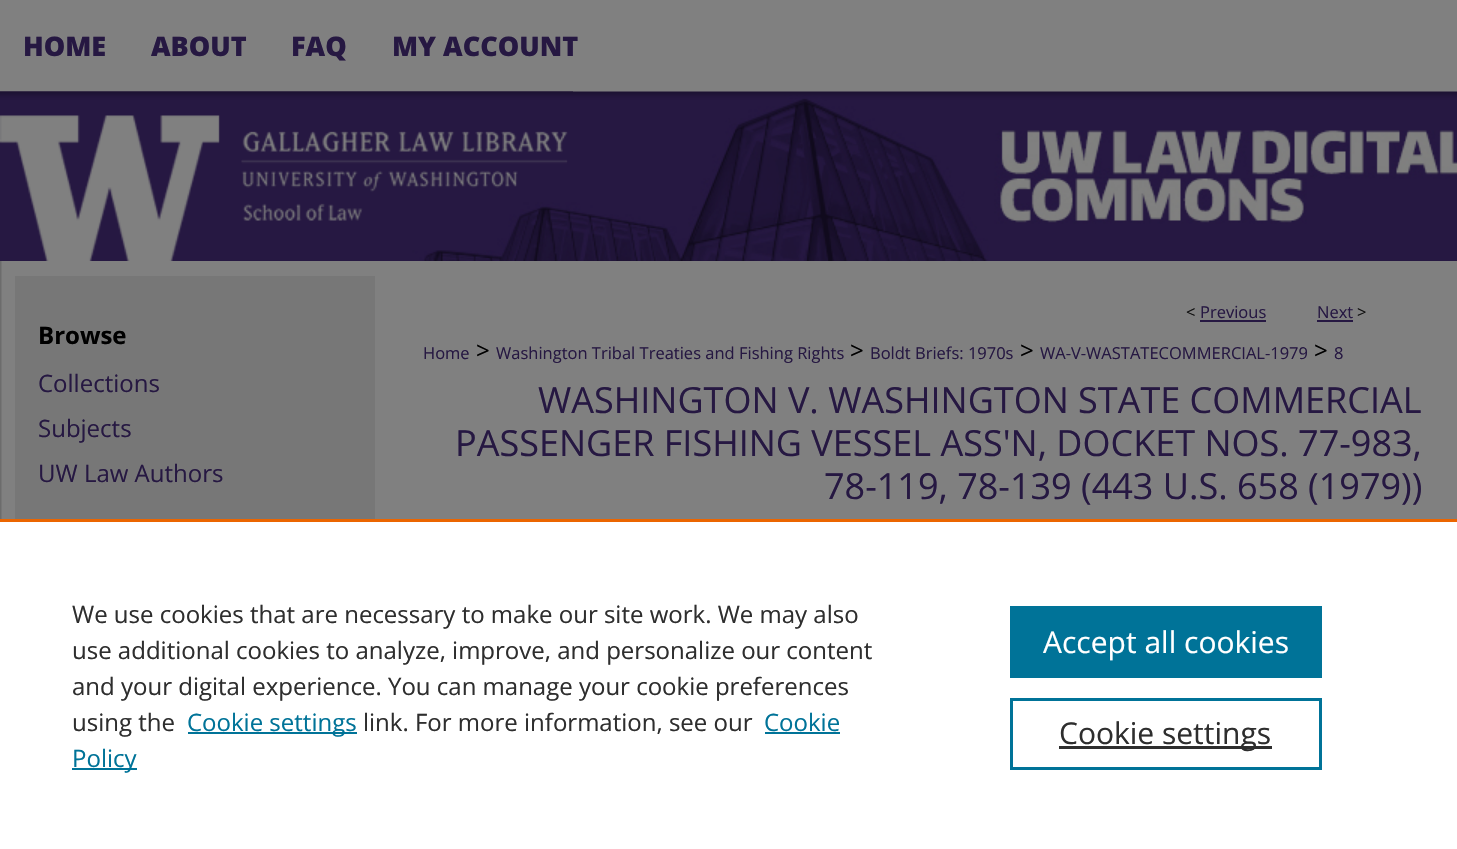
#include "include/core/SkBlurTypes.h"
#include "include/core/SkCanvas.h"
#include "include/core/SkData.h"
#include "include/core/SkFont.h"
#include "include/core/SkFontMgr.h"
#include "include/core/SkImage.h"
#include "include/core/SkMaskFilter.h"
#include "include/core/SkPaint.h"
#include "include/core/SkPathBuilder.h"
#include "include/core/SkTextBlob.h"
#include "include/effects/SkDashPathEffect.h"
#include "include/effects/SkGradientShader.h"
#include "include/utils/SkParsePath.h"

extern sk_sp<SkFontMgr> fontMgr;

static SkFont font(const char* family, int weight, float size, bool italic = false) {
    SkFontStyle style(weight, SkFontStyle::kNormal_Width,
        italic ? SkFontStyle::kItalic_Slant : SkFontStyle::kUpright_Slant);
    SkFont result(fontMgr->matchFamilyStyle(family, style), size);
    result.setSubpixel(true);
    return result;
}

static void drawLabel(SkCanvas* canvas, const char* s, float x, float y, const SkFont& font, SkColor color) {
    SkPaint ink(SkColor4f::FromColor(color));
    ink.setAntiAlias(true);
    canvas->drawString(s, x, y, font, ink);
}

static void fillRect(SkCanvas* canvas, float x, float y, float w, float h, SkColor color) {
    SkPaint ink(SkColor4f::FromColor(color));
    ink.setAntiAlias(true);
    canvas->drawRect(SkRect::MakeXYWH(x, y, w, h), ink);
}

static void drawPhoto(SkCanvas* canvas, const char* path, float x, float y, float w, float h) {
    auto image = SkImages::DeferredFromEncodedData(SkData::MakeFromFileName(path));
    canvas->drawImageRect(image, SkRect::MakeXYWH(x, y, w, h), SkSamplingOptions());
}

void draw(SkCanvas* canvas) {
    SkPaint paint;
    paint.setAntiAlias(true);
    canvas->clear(0xFFFFFFFF);
    fillRect(canvas, 0, 0, 1457, 92, 0xFF808080);
    SkFont font1 = font("Open Sans", 800, 27);
    drawLabel(canvas, "HOME", 23, 56, font1, 0xFF261842);
    drawLabel(canvas, "ABOUT", 151, 56, font1, 0xFF261842);
    drawLabel(canvas, "FAQ", 291, 56, font1, 0xFF261842);
    drawLabel(canvas, "MY ACCOUNT", 392, 56, font1, 0xFF261842);
    drawPhoto(canvas, "assets/img1.png", 0, 91, 1457, 170);
    drawPhoto(canvas, "assets/img2.png", 0, 91, 573, 154);
    drawPhoto(canvas, "assets/img3.png", 0, 261, 1457, 258);
    fillRect(canvas, 15, 276, 360, 243, 0xFF777777);
    SkFont font2 = font("Open Sans", 700, 24);
    drawLabel(canvas, "Browse", 38, 344, font2, 0xFF000000);
    SkFont font3 = font("Open Sans", 400, 24);
    drawLabel(canvas, "Collections", 38, 392, font3, 0xFF261842);
    drawLabel(canvas, "Subjects", 38, 437, font3, 0xFF261842);
    drawLabel(canvas, "UW Law Authors", 38, 482, font3, 0xFF261842);
    SkFont font4 = font("Open Sans", 400, 16.5f);
    drawLabel(canvas, "<", 1186, 318, font4, 0xFF111111);
    drawLabel(canvas, "Previous", 1200, 318, font4, 0xFF261842);
    fillRect(canvas, 1200, 320, 66, 2, 0xFF261842);
    drawLabel(canvas, "Next", 1317, 318, font4, 0xFF261842);
    fillRect(canvas, 1317, 320, 36, 2, 0xFF261842);
    drawLabel(canvas, ">", 1357, 318, font4, 0xFF111111);
    drawLabel(canvas, "Home", 423, 359, font4, 0xFF261842);
    drawLabel(canvas, ">", 476, 359, font3, 0xFF000000);
    drawLabel(canvas, "Washington Tribal Treaties and Fishing Rights", 496, 359, font4, 0xFF261842);
    drawLabel(canvas, ">", 850, 359, font3, 0xFF000000);
    drawLabel(canvas, "Boldt Briefs: 1970s", 870, 359, font4, 0xFF261842);
    drawLabel(canvas, ">", 1020, 359, font3, 0xFF000000);
    drawLabel(canvas, "WA-V-WASTATECOMMERCIAL-1979", 1040, 359, font4, 0xFF261842);
    drawLabel(canvas, ">", 1314, 359, font3, 0xFF000000);
    drawLabel(canvas, "8", 1334, 359, font4, 0xFF261842);
    SkFont font5 = font("Open Sans", 400, 36);
    drawLabel(canvas, "WASHINGTON V. WASHINGTON STATE COMMERCIAL", 538, 413, font5, 0xFF261842);
    drawLabel(canvas, "PASSENGER FISHING VESSEL ASS'N, DOCKET NOS. 77-983,", 455, 456, font5, 0xFF261842);
    drawLabel(canvas, "78-119, 78-139 (443 U.S. 658 (1979))", 824, 499, font5, 0xFF261842);
    fillRect(canvas, 0, 519, 1457, 3, 0xFFEB6500);
    drawLabel(canvas, "We use cookies that are necessary to make our site work. We may also", 72, 623, font3, 0xFF2E2E2E);
    drawLabel(canvas, "use additional cookies to analyze, improve, and personalize our content", 72, 659, font3, 0xFF2E2E2E);
    drawLabel(canvas, "and your digital experience. You can manage your cookie preferences", 72, 695, font3, 0xFF2E2E2E);
    drawLabel(canvas, "using the", 72, 731, font3, 0xFF2E2E2E);
    fillRect(canvas, 188, 732, 169, 2, 0xFF007398);
    drawLabel(canvas, "Cookie settings", 187, 731, font3, 0xFF007398);
    drawLabel(canvas, "link. For more information, see our", 363, 731, font3, 0xFF2E2E2E);
    drawLabel(canvas, "Cookie", 764, 731, font3, 0xFF007398);
    fillRect(canvas, 765, 732, 75, 2, 0xFF007398);
    fillRect(canvas, 72, 768, 65, 2, 0xFF007398);
    drawLabel(canvas, "Policy", 72, 767, font3, 0xFF007398);
    fillRect(canvas, 1010, 606, 312, 72, 0xFF007398);
    SkFont font6 = font("Open Sans", 400, 30);
    drawLabel(canvas, "Accept all cookies", 1043, 653, font6, 0xFFFFFFFF);
    paint.setStroke(true);
    paint.setStrokeWidth(3);
    paint.setColor(0xFF007398);
    canvas->drawRect(SkRect::MakeXYWH(1011.5f, 699.5f, 309, 69), paint);
    fillRect(canvas, 1059, 746, 213, 3, 0xFF2E2E2E);
    drawLabel(canvas, "Cookie settings", 1059, 744, font6, 0xFF2E2E2E);
}
